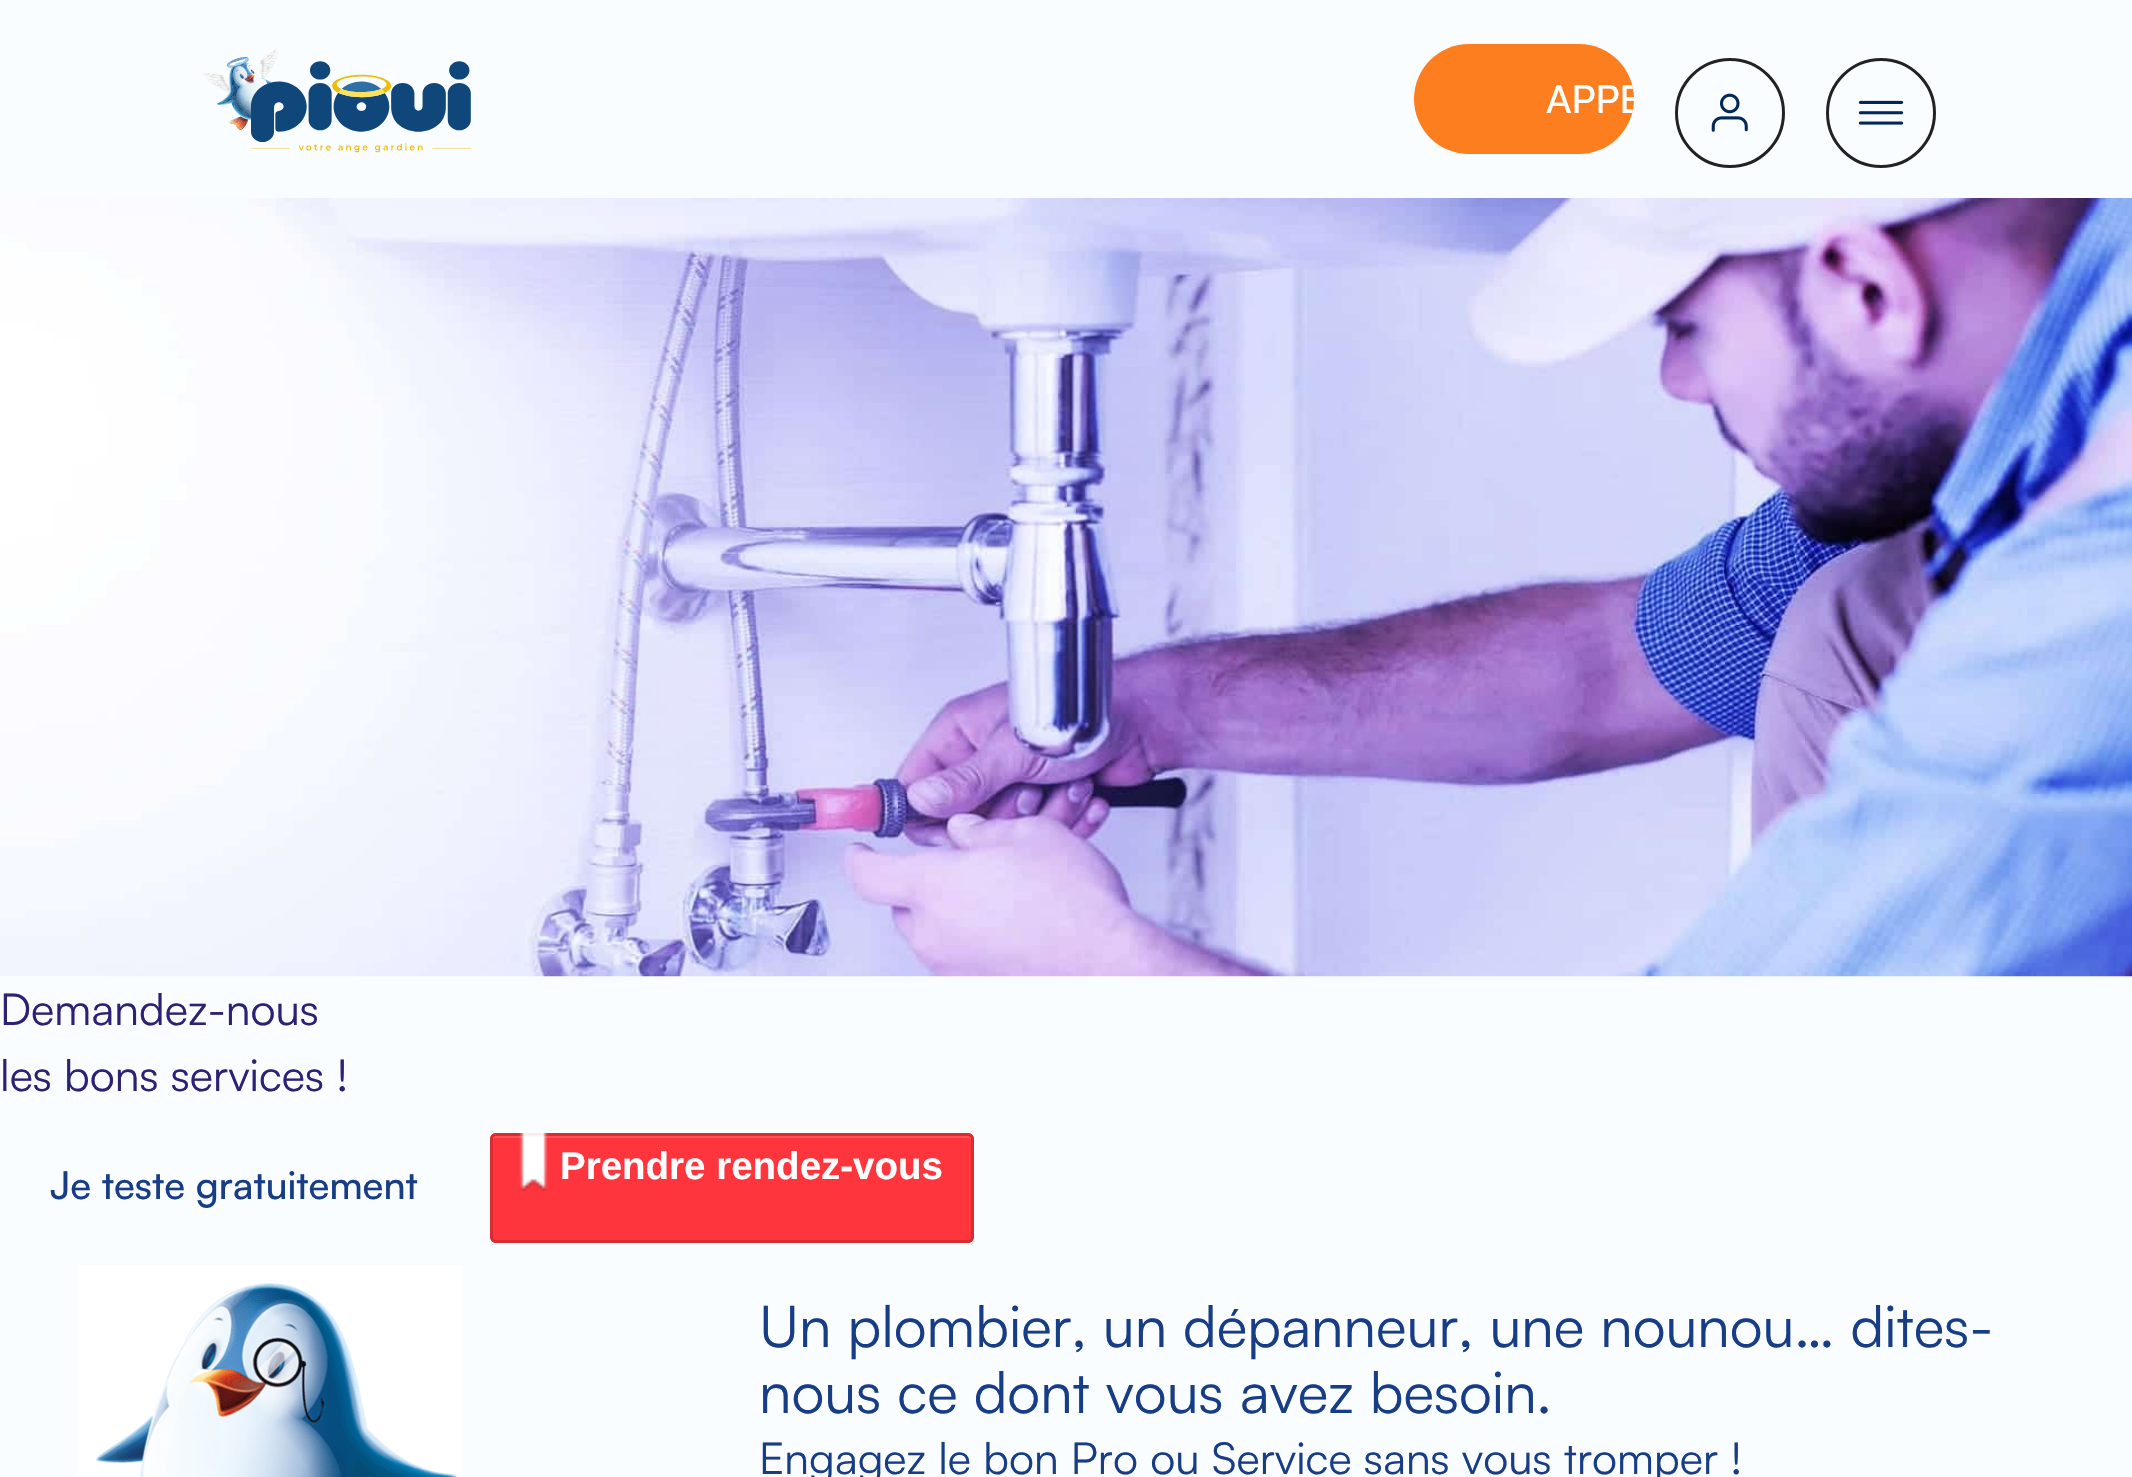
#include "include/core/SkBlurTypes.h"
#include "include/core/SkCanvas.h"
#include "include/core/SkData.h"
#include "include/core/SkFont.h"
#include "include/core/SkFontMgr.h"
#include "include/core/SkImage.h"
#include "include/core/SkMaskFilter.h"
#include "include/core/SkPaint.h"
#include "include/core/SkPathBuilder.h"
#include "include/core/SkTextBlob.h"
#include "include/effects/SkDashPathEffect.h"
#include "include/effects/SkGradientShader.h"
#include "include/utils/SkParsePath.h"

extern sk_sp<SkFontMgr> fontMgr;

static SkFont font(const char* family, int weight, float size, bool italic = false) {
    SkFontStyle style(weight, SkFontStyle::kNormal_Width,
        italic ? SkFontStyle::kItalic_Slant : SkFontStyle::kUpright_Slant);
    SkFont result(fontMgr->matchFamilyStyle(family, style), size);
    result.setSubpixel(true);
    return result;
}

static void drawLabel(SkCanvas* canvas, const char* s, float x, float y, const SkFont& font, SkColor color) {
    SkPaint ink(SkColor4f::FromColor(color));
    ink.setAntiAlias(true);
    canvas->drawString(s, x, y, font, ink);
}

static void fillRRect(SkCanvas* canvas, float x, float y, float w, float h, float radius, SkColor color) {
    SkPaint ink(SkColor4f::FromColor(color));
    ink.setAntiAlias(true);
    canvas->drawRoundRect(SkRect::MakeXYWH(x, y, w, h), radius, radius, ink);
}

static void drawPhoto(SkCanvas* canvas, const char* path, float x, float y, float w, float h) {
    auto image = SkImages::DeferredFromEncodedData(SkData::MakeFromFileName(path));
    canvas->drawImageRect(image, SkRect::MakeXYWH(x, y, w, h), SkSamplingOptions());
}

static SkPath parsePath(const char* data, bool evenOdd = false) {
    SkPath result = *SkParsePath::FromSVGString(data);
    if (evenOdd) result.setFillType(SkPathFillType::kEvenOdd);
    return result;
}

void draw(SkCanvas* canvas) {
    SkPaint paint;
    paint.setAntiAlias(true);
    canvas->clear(0xFFFAFDFF);
    drawPhoto(canvas, "assets/img1.png", 202, 47, 269, 106);
    fillRRect(canvas, 1414, 44, 220, 110, 55, 0xFFFD7E1E);
    canvas->save();
    canvas->clipPath(parsePath("M1469 44H1579C1609.5 44 1634 68.5 1634 99C1634 129.5 1609.5 154 1579 154H1469C1438.5 154 1414 129.5 1414 99C1414 68.5 1438.5 44 1469 44Z"), true);
    SkFont font1 = font("Satoshi", 500, 38.5f);
    drawLabel(canvas, "APPE", 1546, 113, font1, 0xFFFFFFFF);
    canvas->restore();
    paint.setStroke(true);
    paint.setStrokeWidth(3);
    paint.setColor(0xFF222222);
    canvas->drawCircle(1730, 113, 53.5f, paint);
    drawPhoto(canvas, "assets/img2.png", 1711, 93, 37, 39);
    canvas->drawCircle(1881, 113, 53.5f, paint);
    drawPhoto(canvas, "assets/img3.png", 1858, 100, 46, 25);
    drawPhoto(canvas, "assets/img4.png", 0, 198, 2132, 779);
    SkFont font2 = font("Satoshi", 400, 44);
    drawLabel(canvas, "Demandez-nous", 0, 1025, font2, 0xFF2C2275);
    drawLabel(canvas, "les bons services !", 0, 1091, font2, 0xFF2C2275);
    fillRRect(canvas, 490, 1133, 484, 110, 6, 0xFFFF353D);
    paint.setStroke(false);
    paint.setColor(0xFFFF535A);
    canvas->drawPath(parsePath("M495 1138H968C970 1138 971 1140 971 1141C971 1139 971 1136 968 1136H495C492 1136 492 1139 492 1141C492 1140 493 1138 495 1138Z"), paint);
    paint.setStroke(true);
    paint.setColor(0xFFD82D33);
    canvas->drawRoundRect(SkRect::MakeXYWH(491.5f, 1134.5f, 481, 107), 4.5f, 4.5f, paint);
    drawPhoto(canvas, "assets/img5.png", 519, 1133, 29, 59);
    SkFont font3 = font("Liberation Sans", 700, 38.5f);
    drawLabel(canvas, "Prendre rendez-vous", 560, 1179, font3, 0xFFFFFFFF);
    drawLabel(canvas, "Je teste gratuitement", 50, 1199, font1, 0xFF183D87);
    drawPhoto(canvas, "assets/img6.png", 77, 1265, 385, 212);
    SkFont font4 = font("Satoshi", 400, 57.75f);
    drawLabel(canvas, "Un plombier, un dépanneur, une nounou… dites-", 759, 1347, font4, 0xFF183D87);
    drawLabel(canvas, "nous ce dont vous avez besoin.", 759, 1413, font4, 0xFF183D87);
    drawLabel(canvas, "Engagez le bon Pro ou Service sans vous tromper !", 759, 1474, font2, 0xFF183D87);
}
